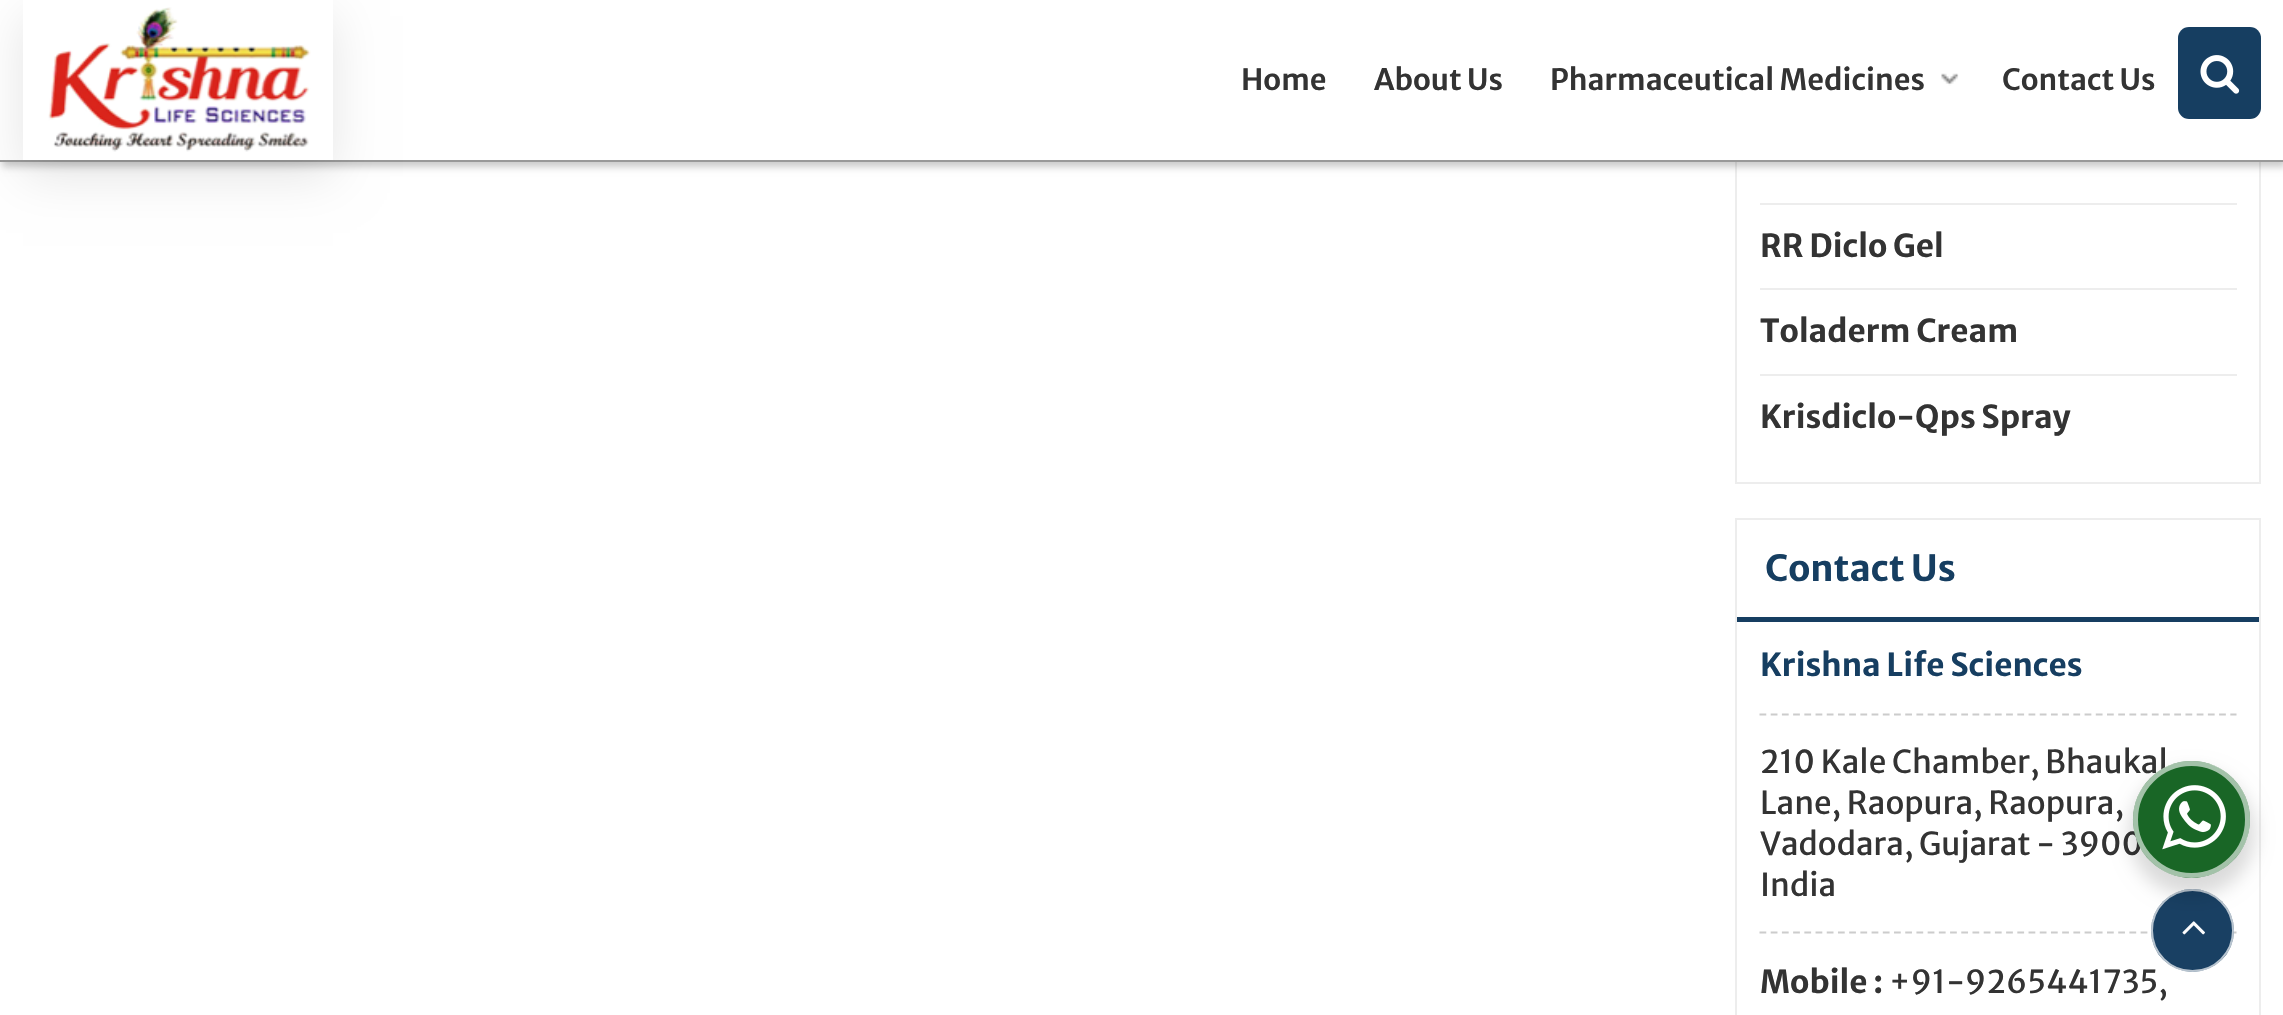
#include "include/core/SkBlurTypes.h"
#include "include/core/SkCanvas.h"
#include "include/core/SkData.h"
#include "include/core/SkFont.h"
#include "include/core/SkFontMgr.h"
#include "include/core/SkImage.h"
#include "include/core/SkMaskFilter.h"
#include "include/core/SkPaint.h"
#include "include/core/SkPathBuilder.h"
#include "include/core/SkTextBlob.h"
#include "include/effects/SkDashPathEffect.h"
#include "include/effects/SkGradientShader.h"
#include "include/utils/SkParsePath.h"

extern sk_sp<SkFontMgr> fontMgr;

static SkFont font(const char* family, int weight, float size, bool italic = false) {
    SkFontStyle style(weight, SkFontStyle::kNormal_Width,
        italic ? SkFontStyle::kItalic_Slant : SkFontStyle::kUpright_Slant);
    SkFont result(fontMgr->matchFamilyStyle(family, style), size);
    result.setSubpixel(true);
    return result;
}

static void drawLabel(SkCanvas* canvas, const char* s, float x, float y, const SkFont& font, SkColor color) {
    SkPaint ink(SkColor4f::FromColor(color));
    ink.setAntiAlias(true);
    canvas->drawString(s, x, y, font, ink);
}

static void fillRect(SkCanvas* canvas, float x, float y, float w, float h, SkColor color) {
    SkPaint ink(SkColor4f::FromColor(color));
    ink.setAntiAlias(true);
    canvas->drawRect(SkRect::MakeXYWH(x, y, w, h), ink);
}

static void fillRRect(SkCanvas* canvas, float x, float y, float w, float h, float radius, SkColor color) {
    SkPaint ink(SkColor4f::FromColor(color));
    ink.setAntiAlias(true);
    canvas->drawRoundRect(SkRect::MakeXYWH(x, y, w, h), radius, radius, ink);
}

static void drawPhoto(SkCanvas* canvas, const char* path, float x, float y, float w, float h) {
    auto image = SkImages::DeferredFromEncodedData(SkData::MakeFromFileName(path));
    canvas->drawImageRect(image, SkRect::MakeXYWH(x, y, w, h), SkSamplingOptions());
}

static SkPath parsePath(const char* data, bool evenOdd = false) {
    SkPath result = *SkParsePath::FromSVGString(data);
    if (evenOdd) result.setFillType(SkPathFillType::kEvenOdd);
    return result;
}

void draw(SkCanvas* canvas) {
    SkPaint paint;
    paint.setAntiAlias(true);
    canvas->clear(0xFFFFFFFF);
    paint.setStroke(true);
    paint.setStrokeWidth(2);
    paint.setColor(0xFFEDEDED);
    canvas->drawRect(SkRect::MakeXYWH(1736, -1, 524, 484), paint);
    paint.setStroke(false);
    paint.setColor(0x33000000);
    paint.setMaskFilter(SkMaskFilter::MakeBlur(kNormal_SkBlurStyle, 3.5f));
    canvas->drawRect(SkRect::MakeXYWH(2, 5, 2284, 162), paint);
    paint.setMaskFilter(nullptr);
    fillRect(canvas, 0, 0, 2283, 160, 0xFFFFFFFF);
    fillRect(canvas, 0, 160, 2283, 2, 0xFF999999);
    paint.setColor(0x1A000000);
    paint.setMaskFilter(SkMaskFilter::MakeBlur(kNormal_SkBlurStyle, 23.5f));
    canvas->drawRect(SkRect::MakeXYWH(23, 16, 310, 160), paint);
    paint.setMaskFilter(nullptr);
    fillRect(canvas, 23, 0, 310, 160, 0xFFFFFFFF);
    drawPhoto(canvas, "assets/img1.png", 48, 7, 263, 145);
    SkFont font1 = font("Merriweather Sans", 600, 29.25f);
    drawLabel(canvas, "Home", 1241, 90, font1, 0xFF333333);
    drawLabel(canvas, "About Us", 1374, 90, font1, 0xFF333333);
    drawLabel(canvas, "Pharmaceutical Medicines", 1550, 90, font1, 0xFF333333);
    drawPhoto(canvas, "assets/img2.png", 1941, 73, 18, 13);
    drawLabel(canvas, "Contact Us", 2002, 90, font1, 0xFF333333);
    fillRRect(canvas, 2178, 27, 83, 92, 11, 0xFF163E61);
    drawPhoto(canvas, "assets/img3.png", 2200, 55, 40, 39);
    fillRect(canvas, 1760, 203, 477, 2, 0xFFEDEDED);
    fillRect(canvas, 1760, 288, 477, 2, 0xFFEDEDED);
    SkFont font2 = font("Merriweather Sans", 700, 31.5f);
    drawLabel(canvas, "RR Diclo Gel", 1760, 257, font2, 0xFF333333);
    fillRect(canvas, 1760, 374, 477, 2, 0xFFEDEDED);
    drawLabel(canvas, "Toladerm Cream", 1760, 342, font2, 0xFF333333);
    drawLabel(canvas, "Krisdiclo-Qps Spray", 1760, 428, font2, 0xFF333333);
    paint.setStroke(true);
    paint.setColor(0xFFEDEDED);
    canvas->drawRect(SkRect::MakeXYWH(1736, 519, 524, 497), paint);
    fillRect(canvas, 1737, 617, 522, 5, 0xFF163E61);
    SkFont font3 = font("Merriweather Sans", 700, 36);
    drawLabel(canvas, "Contact Us", 1765, 581, font3, 0xFF163E61);
    drawLabel(canvas, "Krishna Life Sciences", 1760, 676, font2, 0xFF163E61);
    paint.setStrokeWidth(2.2f);
    paint.setColor(0xFFCCCCCC);
    paint.setPathEffect(SkDashPathEffect::Make({{6.75f, 4.46f}}, 0));
    canvas->drawPath(parsePath("M1759.5 714.5H2236.5"), paint);
    paint.setPathEffect(nullptr);
    SkFont font4 = font("Merriweather Sans", 400, 31.5f);
    drawLabel(canvas, "210 Kale Chamber, Bhaukal", 1760, 773, font4, 0xFF333333);
    drawLabel(canvas, "Lane, Raopura, Raopura,", 1760, 814, font4, 0xFF333333);
    drawLabel(canvas, "Vadodara, Gujarat - 3900", 1760, 855, font4, 0xFF333333);
    drawLabel(canvas, "India", 1760, 896, font4, 0xFF333333);
    paint.setPathEffect(SkDashPathEffect::Make({{6.75f, 4.46f}}, 0));
    canvas->drawPath(parsePath("M1759.5 932.5H2236.5"), paint);
    paint.setPathEffect(nullptr);
    drawLabel(canvas, "Mobile :", 1760, 993, font2, 0xFF333333);
    drawLabel(canvas, "+91-9265441735,", 1889, 993, font4, 0xFF333333);
    paint.setStroke(false);
    paint.setColor(0xFC163E61);
    canvas->drawCircle(2192.5f, 930.5f, 41.5f, paint);
    paint.setStroke(true);
    paint.setStrokeWidth(2);
    paint.setColor(0xB0FFFFFF);
    canvas->drawCircle(2192.5f, 930.5f, 40.5f, paint);
    drawPhoto(canvas, "assets/img5.png", 2182, 921, 23, 14);
    paint.setStroke(false);
    paint.setColor(0x24000000);
    paint.setMaskFilter(SkMaskFilter::MakeBlur(kNormal_SkBlurStyle, 9));
    canvas->drawRoundRect(SkRect::MakeXYWH(2129, 770, 126, 126), 63, 63, paint);
    paint.setMaskFilter(nullptr);
    paint.setColor(0xFF196626);
    canvas->drawCircle(2191.5f, 819.5f, 58.5f, paint);
    paint.setStroke(true);
    paint.setStrokeWidth(5);
    paint.setColor(0x99FFFFFF);
    canvas->drawCircle(2191.5f, 819.5f, 56, paint);
    drawPhoto(canvas, "assets/img4.png", 2162, 785, 64, 65);
}
